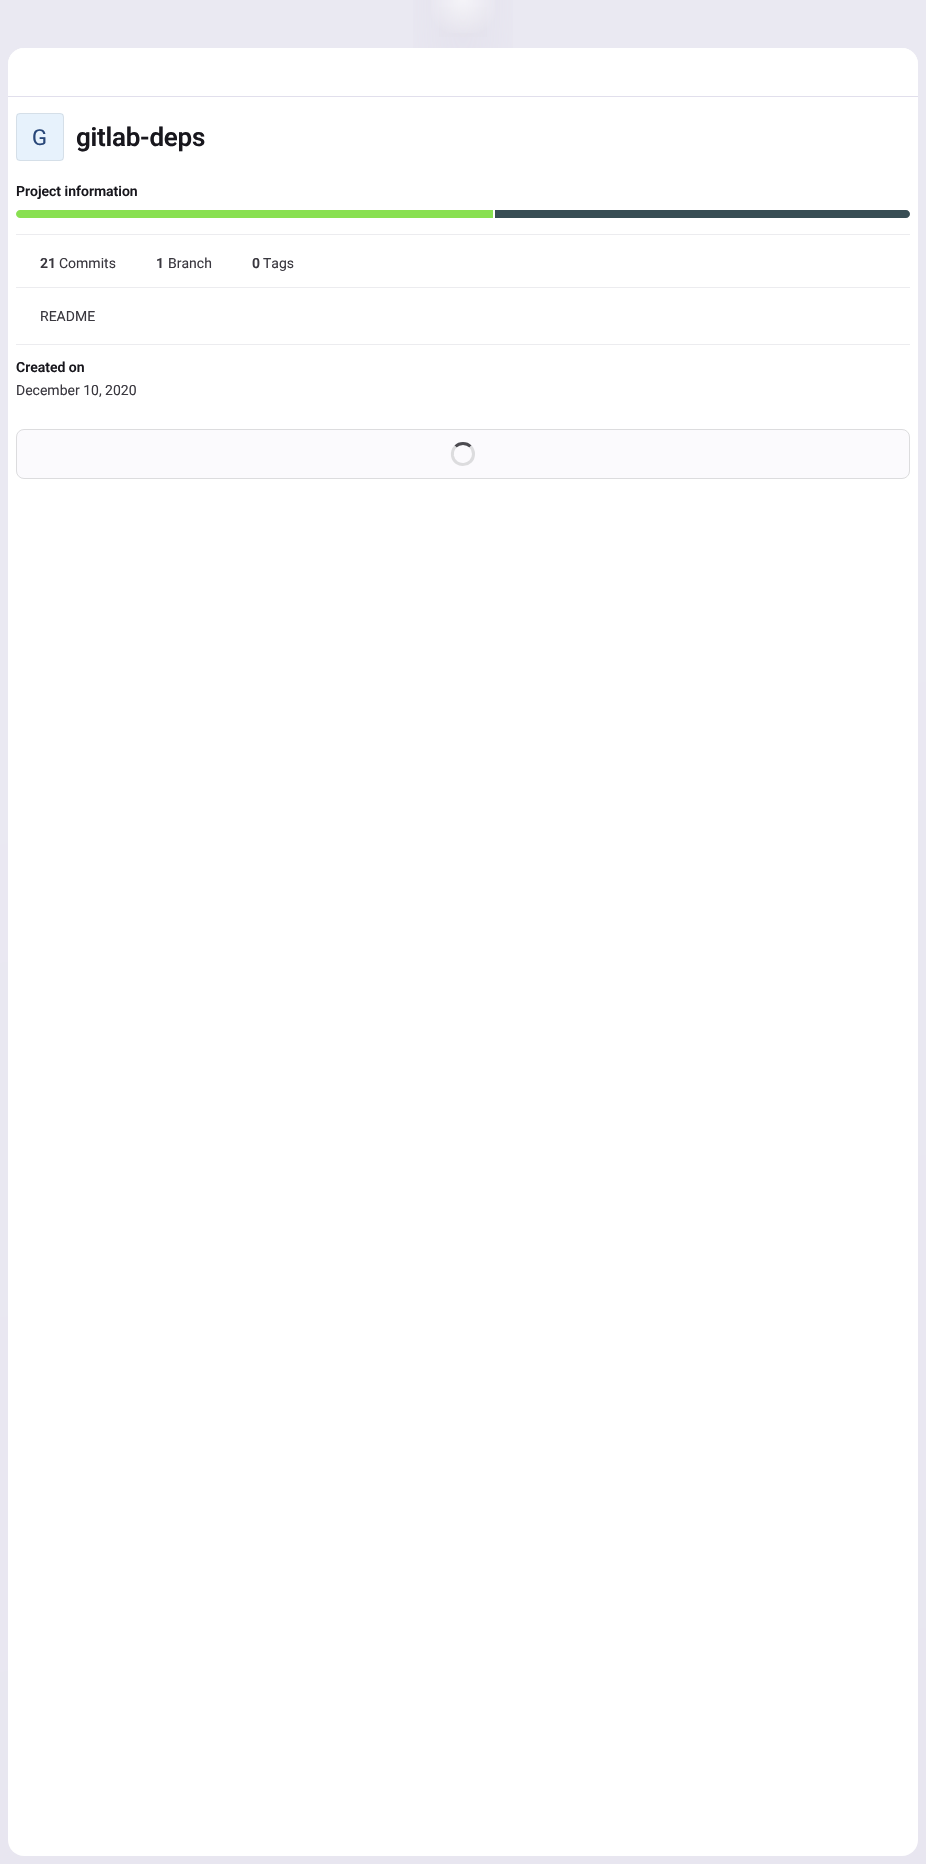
#include "include/core/SkBlurTypes.h"
#include "include/core/SkCanvas.h"
#include "include/core/SkData.h"
#include "include/core/SkFont.h"
#include "include/core/SkFontMgr.h"
#include "include/core/SkImage.h"
#include "include/core/SkMaskFilter.h"
#include "include/core/SkPaint.h"
#include "include/core/SkPathBuilder.h"
#include "include/core/SkTextBlob.h"
#include "include/effects/SkDashPathEffect.h"
#include "include/effects/SkGradientShader.h"
#include "include/utils/SkParsePath.h"

extern sk_sp<SkFontMgr> fontMgr;

static SkFont font(const char* family, int weight, float size, bool italic = false) {
    SkFontStyle style(weight, SkFontStyle::kNormal_Width,
        italic ? SkFontStyle::kItalic_Slant : SkFontStyle::kUpright_Slant);
    SkFont result(fontMgr->matchFamilyStyle(family, style), size);
    result.setSubpixel(true);
    return result;
}

static void drawLabel(SkCanvas* canvas, const char* s, float x, float y, const SkFont& font, SkColor color) {
    SkPaint ink(SkColor4f::FromColor(color));
    ink.setAntiAlias(true);
    canvas->drawString(s, x, y, font, ink);
}

static void drawTracked(SkCanvas* canvas, const char* s, float x, float y, const SkFont& font, const SkPaint& ink, float letter, float word) {
    std::vector<SkGlyphID> glyphs(font.countText(s, strlen(s), SkTextEncoding::kUTF8));
    std::vector<float> xs(glyphs.size());
    font.textToGlyphs(s, strlen(s), SkTextEncoding::kUTF8, glyphs);
    font.getXPos(glyphs, xs, x);
    float extra = 0;
    for (size_t i = 0; i < glyphs.size(); i++) {
        xs[i] += extra;
        extra += letter + word * (glyphs[i] == font.unicharToGlyph(' '));
    }
    canvas->drawTextBlob(SkTextBlob::MakeFromPosHGlyphs(glyphs, xs, y, font), 0, 0, ink);
}

static void fillRect(SkCanvas* canvas, float x, float y, float w, float h, SkColor color) {
    SkPaint ink(SkColor4f::FromColor(color));
    ink.setAntiAlias(true);
    canvas->drawRect(SkRect::MakeXYWH(x, y, w, h), ink);
}

static void fillRRect(SkCanvas* canvas, float x, float y, float w, float h, float radius, SkColor color) {
    SkPaint ink(SkColor4f::FromColor(color));
    ink.setAntiAlias(true);
    canvas->drawRoundRect(SkRect::MakeXYWH(x, y, w, h), radius, radius, ink);
}

static SkPath parsePath(const char* data, bool evenOdd = false) {
    SkPath result = *SkParsePath::FromSVGString(data);
    if (evenOdd) result.setFillType(SkPathFillType::kEvenOdd);
    return result;
}

void draw(SkCanvas* canvas) {
    SkPaint paint;
    paint.setAntiAlias(true);
    canvas->clear(0xFFFFFFFF);
    {
        const SkColor colors[] = {0xFFE8E6F0, 0xFFEAE9F2};
        const float stops[] = {0, 0.7f};
        const SkPoint ends[] = {{636, 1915}, {290, -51}};
        paint.setShader(SkGradientShader::MakeLinear(ends, colors, stops, 2, SkTileMode::kClamp));
        paint.setAlpha(255);
    }
    canvas->drawRect(SkRect::MakeXYWH(0, 0, 926, 1864), paint);
    {
        const SkColor colors[] = {0xFFE4E2ED, 0x00E4E2ED};
        const float stops[] = {0, 0.15f};
        SkMatrix m = SkMatrix::Translate(463, 0).preScale(463, 1864);
        paint.setShader(SkGradientShader::MakeRadial({0, 0}, 1, colors, stops, 2, SkTileMode::kClamp, 0, &m));
        paint.setAlpha(255);
    }
    canvas->drawRect(SkRect::MakeXYWH(413, 0, 100, 48), paint);
    {
        const SkColor colors[] = {0xFFE4E2EC, 0x00E4E2EC};
        const float stops[] = {0, 0.11f};
        SkMatrix m = SkMatrix::Translate(463, 0).preScale(463, 1864);
        paint.setShader(SkGradientShader::MakeRadial({0, 0}, 1, colors, stops, 2, SkTileMode::kClamp, 0, &m));
        paint.setAlpha(255);
    }
    canvas->drawRect(SkRect::MakeXYWH(439, 7, 48, 30), paint);
    {
        const SkColor colors[] = {0x99FFFFFF, 0x00FFFFFF};
        const float stops[] = {0, 0.02f};
        paint.setShader(SkGradientShader::MakeRadial({463, 0}, 1921, colors, stops, 2, SkTileMode::kClamp));
        paint.setAlpha(255);
    }
    canvas->drawRect(SkRect::MakeXYWH(431, 0, 64, 33), paint);
    fillRRect(canvas, 8, 48, 910, 1808, 16, 0xFFFFFFFF);
    paint.setShader(nullptr);
    paint.setColor(0xFFFFFFFF);
    canvas->drawPath(parsePath("M24 48H902C911 48 918 55 918 64V97H8V64C8 55 15 48 24 48Z"), paint);
    fillRect(canvas, 8, 96, 910, 1, 0xFFE1DFEC);
    fillRRect(canvas, 16, 113, 48, 48, 4, 0xFFE7F2FC);
    paint.setStroke(true);
    paint.setStrokeWidth(1);
    paint.setColor(0x14050506);
    canvas->drawRoundRect(SkRect::MakeXYWH(16.5f, 113.5f, 47, 47), 3.5f, 3.5f, paint);
    SkFont font1 = font("Roboto", 400, 22);
    drawLabel(canvas, "G", 32, 145, font1, 0xFF284779);
    SkFont font2 = font("Roboto", 600, 26);
    paint.setStroke(false);
    paint.setColor(0xFF18171D);
    drawTracked(canvas, "gitlab-deps", 76, 146, font2, paint, -0.25f, 0);
    fillRect(canvas, 16, 234, 894, 1, 0xFFECECEF);
    SkFont font3 = font("Roboto", 600, 14);
    drawLabel(canvas, "Project information", 16, 196, font3, 0xFF18171D);
    paint.setColor(0xFF89E051);
    canvas->drawPath(parsePath("M20 210H493V218H20C18 218 16 216 16 214C16 212 18 210 20 210Z"), paint);
    paint.setColor(0xFF384D54);
    canvas->drawPath(parsePath("M495 210H906C908 210 910 212 910 214C910 216 908 218 906 218H495Z"), paint);
    fillRect(canvas, 16, 287, 894, 1, 0xFFECECEF);
    drawLabel(canvas, "21", 40, 268, font3, 0xFF3A383F);
    SkFont font4 = font("Roboto", 400, 14);
    drawLabel(canvas, "Commits", 59, 268, font4, 0xFF3A383F);
    drawLabel(canvas, "1", 156, 268, font3, 0xFF3A383F);
    drawLabel(canvas, "Branch", 168, 268, font4, 0xFF3A383F);
    drawLabel(canvas, "0", 252, 268, font3, 0xFF3A383F);
    drawLabel(canvas, "Tags", 263, 268, font4, 0xFF3A383F);
    fillRect(canvas, 16, 344, 894, 1, 0xFFECECEF);
    drawLabel(canvas, "README", 40, 321, font4, 0xFF3A383F);
    drawLabel(canvas, "Created on", 16, 372, font3, 0xFF18171D);
    drawLabel(canvas, "December 10, 2020", 16, 395, font4, 0xFF3A383F);
    paint.setColor(0xFFFBFAFD);
    canvas->drawRoundRect(SkRect::MakeXYWH(16.5f, 429.5f, 893, 49), 7.5f, 7.5f, paint);
    paint.setStroke(true);
    paint.setColor(0xFFDCDCDE);
    canvas->drawRoundRect(SkRect::MakeXYWH(16.5f, 429.5f, 893, 49), 7.5f, 7.5f, paint);
    paint.setStrokeWidth(3);
    paint.setColor(0xFF4C4B51);
    canvas->drawPath(parsePath("M455.5 446.5C459.5 442.5 466.5 442.5 470.5 446.5"), paint);
    paint.setColor(0xFFDCDCDE);
    canvas->drawPath(parsePath("M470.5 446.5C472.5 448.5 473.5 451 473.5 454C473.5 466.5 455 468.5 452.5 456C452 452.5 453 449 455.5 446.5"), paint);
}
